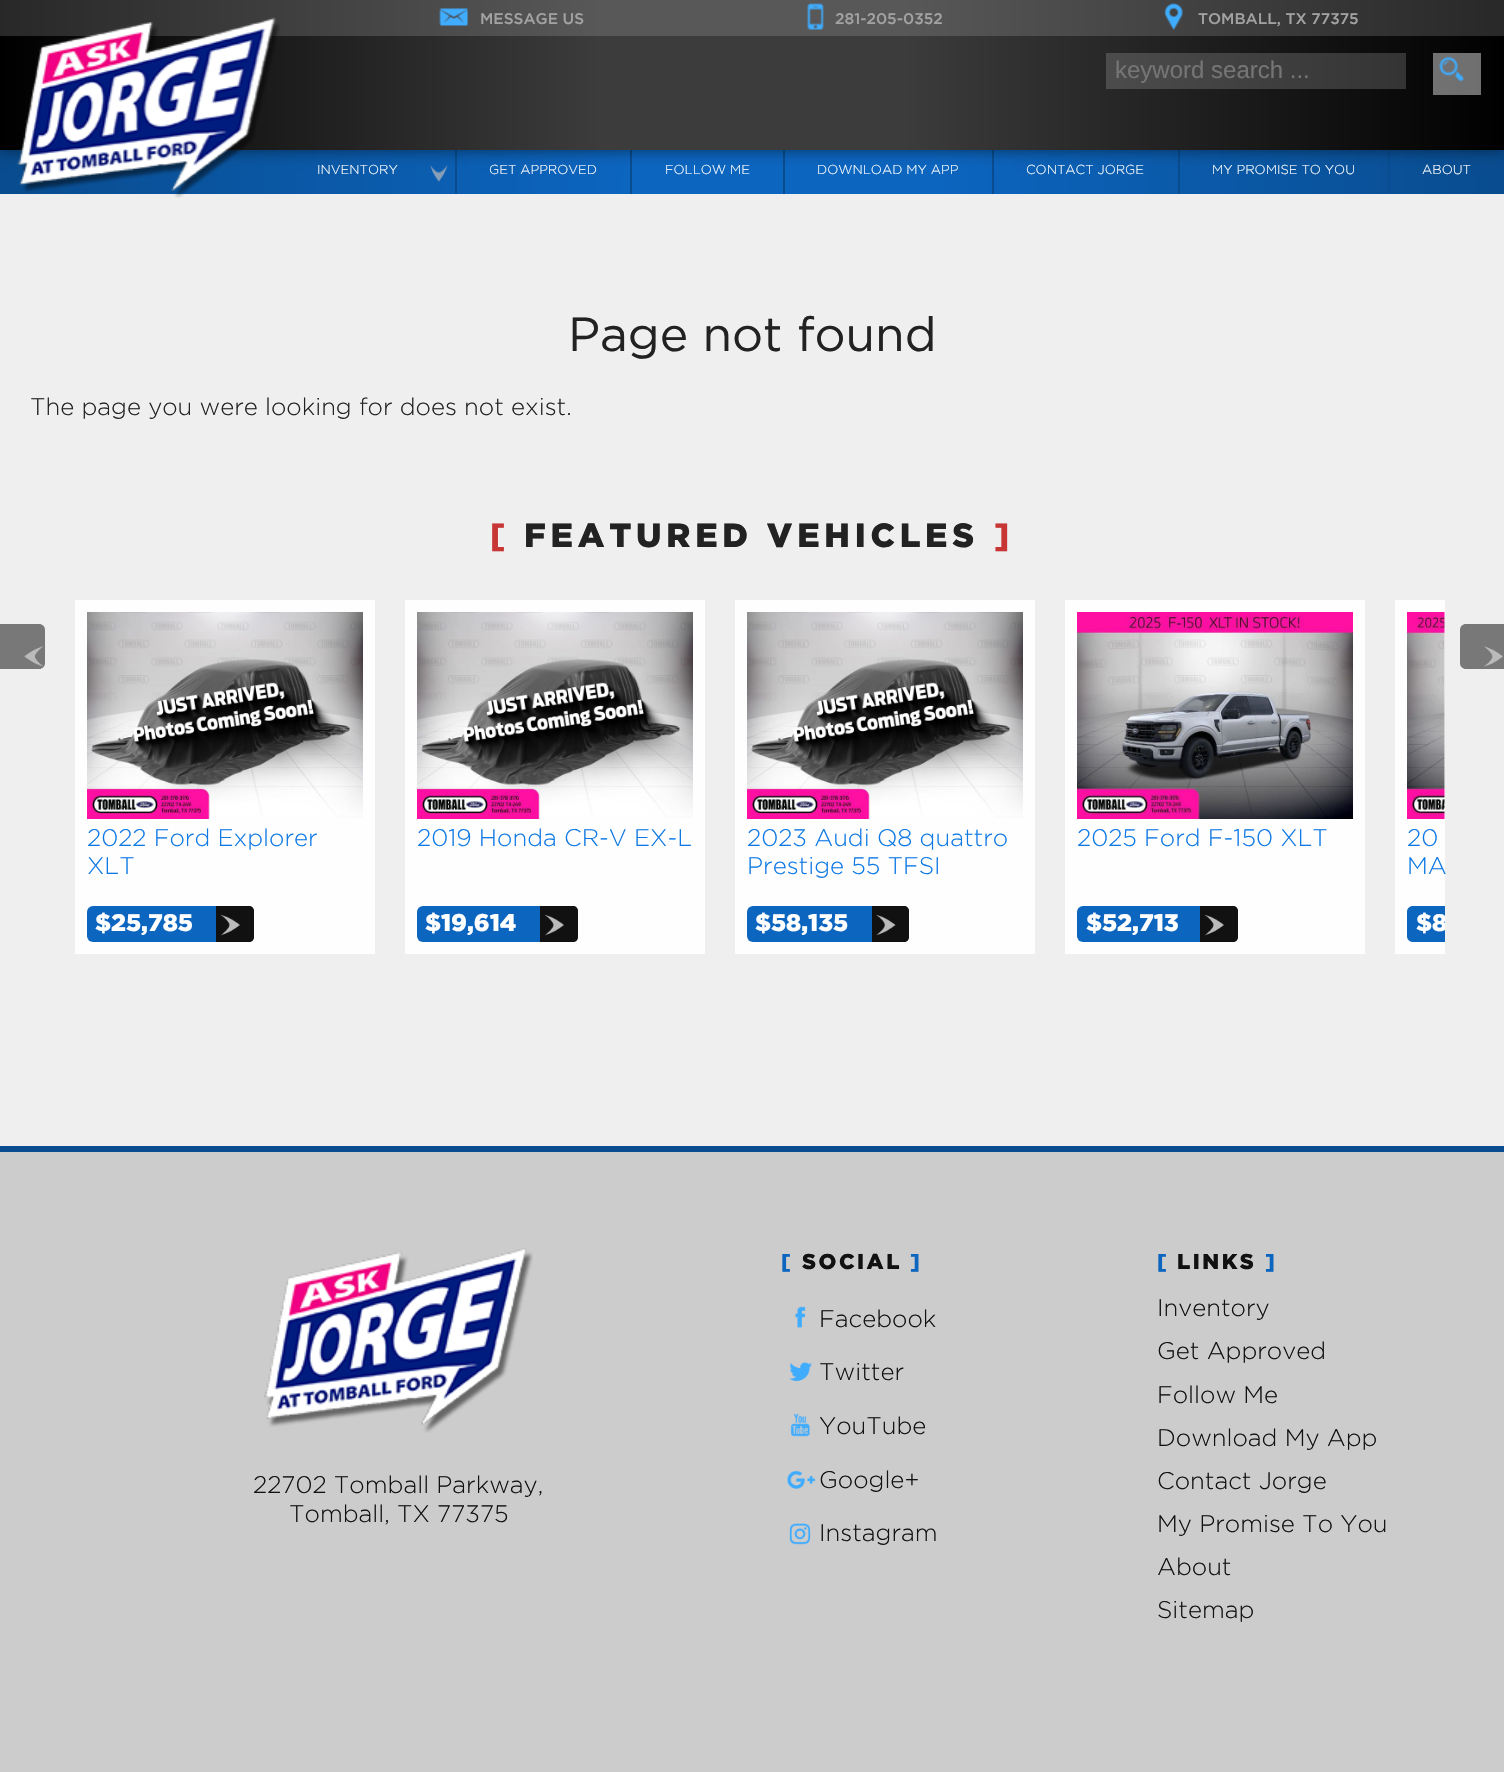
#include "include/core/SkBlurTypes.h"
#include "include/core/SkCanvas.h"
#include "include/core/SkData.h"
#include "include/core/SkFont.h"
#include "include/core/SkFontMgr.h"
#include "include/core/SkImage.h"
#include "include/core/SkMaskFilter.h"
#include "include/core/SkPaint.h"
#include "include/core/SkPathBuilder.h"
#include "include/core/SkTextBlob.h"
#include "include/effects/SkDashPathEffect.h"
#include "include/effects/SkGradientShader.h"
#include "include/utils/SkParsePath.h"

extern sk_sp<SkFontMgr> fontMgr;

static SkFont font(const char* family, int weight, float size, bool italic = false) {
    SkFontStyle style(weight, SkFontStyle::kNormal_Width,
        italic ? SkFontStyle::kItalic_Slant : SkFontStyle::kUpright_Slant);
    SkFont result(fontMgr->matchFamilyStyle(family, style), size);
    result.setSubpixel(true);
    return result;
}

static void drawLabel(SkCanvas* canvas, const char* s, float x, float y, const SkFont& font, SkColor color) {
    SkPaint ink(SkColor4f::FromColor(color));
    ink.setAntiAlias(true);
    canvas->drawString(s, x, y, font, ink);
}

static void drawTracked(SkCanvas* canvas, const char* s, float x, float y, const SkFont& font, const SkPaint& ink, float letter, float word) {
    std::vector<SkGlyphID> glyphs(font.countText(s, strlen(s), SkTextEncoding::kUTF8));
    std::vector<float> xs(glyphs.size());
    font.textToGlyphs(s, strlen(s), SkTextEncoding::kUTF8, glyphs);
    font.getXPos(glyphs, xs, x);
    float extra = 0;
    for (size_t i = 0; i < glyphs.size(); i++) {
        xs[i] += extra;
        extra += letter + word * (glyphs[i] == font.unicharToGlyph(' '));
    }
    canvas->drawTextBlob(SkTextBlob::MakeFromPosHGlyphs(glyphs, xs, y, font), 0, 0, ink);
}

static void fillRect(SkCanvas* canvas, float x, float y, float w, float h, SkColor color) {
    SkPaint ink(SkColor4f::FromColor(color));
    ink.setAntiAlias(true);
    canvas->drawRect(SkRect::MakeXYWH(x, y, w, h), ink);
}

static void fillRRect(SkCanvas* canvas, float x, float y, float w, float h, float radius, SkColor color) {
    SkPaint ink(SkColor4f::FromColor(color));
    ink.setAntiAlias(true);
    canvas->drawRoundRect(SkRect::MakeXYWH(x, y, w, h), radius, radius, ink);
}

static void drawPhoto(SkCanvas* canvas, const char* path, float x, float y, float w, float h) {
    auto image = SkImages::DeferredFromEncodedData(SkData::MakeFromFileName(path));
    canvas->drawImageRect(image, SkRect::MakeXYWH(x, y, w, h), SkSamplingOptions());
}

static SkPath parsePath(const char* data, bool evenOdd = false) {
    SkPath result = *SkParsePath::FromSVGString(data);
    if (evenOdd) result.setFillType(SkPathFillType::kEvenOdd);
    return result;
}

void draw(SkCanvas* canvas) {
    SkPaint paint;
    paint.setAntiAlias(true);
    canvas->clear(0xFFCCCCCC);
    {
        const SkColor colors[] = {0xFF094C8F, 0xFF0C65BF, 0xFF0C65BF, 0xFF094C8F};
        const float stops[] = {0, 0.42f, 0.62f, 1};
        const SkPoint ends[] = {{0, 172}, {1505, 172}};
        paint.setShader(SkGradientShader::MakeLinear(ends, colors, stops, 4, SkTileMode::kClamp));
        paint.setAlpha(255);
    }
    canvas->drawRect(SkRect::MakeXYWH(0, 150, 1504, 44), paint);
    fillRect(canvas, 455, 150, 2, 44, 0xFF094C8F);
    drawPhoto(canvas, "assets/img6.png", 430, 165, 18, 17);
    fillRect(canvas, 630, 150, 2, 44, 0xFF094C8F);
    fillRect(canvas, 783, 150, 2, 44, 0xFF094C8F);
    fillRect(canvas, 992, 150, 2, 44, 0xFF094C8F);
    fillRect(canvas, 1178, 150, 2, 44, 0xFF094C8F);
    fillRect(canvas, 1388, 150, 2, 44, 0xFF094C8F);
    paint.setShader(nullptr);
    paint.setColor(0x80000000);
    paint.setMaskFilter(SkMaskFilter::MakeBlur(kNormal_SkBlurStyle, 7.5f));
    canvas->drawRect(SkRect::MakeXYWH(0, 0, 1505, 150), paint);
    paint.setMaskFilter(nullptr);
    {
        const SkColor colors[] = {0xFF000000, 0xFF3C3C3C, 0xFF3C3C3C, 0xFF000000};
        const float stops[] = {0, 0.4f, 0.6f, 1};
        const SkPoint ends[] = {{0, 75}, {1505, 75}};
        paint.setShader(SkGradientShader::MakeLinear(ends, colors, stops, 4, SkTileMode::kClamp));
        paint.setAlpha(255);
    }
    canvas->drawRect(SkRect::MakeXYWH(0, 36, 1504, 114), paint);
    {
        const SkColor colors[] = {0xFF282828, 0xFF585858, 0xFF585858, 0xFF282828};
        const float stops[] = {0, 0.4f, 0.6f, 1};
        const SkPoint ends[] = {{0, 75}, {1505, 75}};
        paint.setShader(SkGradientShader::MakeLinear(ends, colors, stops, 4, SkTileMode::kClamp));
        paint.setAlpha(255);
    }
    canvas->drawRect(SkRect::MakeXYWH(0, 0, 1504, 36), paint);
    {
        const SkColor colors[] = {0xFF6E6E6E, 0xFF8C8C8C, 0xFF8C8C8C, 0xFF6E6E6E};
        const float stops[] = {0, 0.4f, 0.6f, 1};
        const SkPoint ends[] = {{0, 75}, {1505, 75}};
        paint.setShader(SkGradientShader::MakeLinear(ends, colors, stops, 4, SkTileMode::kClamp));
        paint.setAlpha(255);
    }
    canvas->drawRect(SkRect::MakeXYWH(1433, 53, 48, 42), paint);
    {
        const SkColor colors[] = {0xFF2C2C2C, 0xFF5C5C5C, 0xFF5C5C5C, 0xFF2C2C2C};
        const float stops[] = {0, 0.4f, 0.6f, 1};
        const SkPoint ends[] = {{0, 75}, {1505, 75}};
        paint.setShader(SkGradientShader::MakeLinear(ends, colors, stops, 4, SkTileMode::kClamp));
        paint.setAlpha(255);
    }
    canvas->drawRect(SkRect::MakeXYWH(1106, 53, 300, 36), paint);
    fillRect(canvas, 0, 194, 1504, 952, 0xFFEFEFEF);
    drawPhoto(canvas, "assets/img1.png", 17, 17, 263, 181);
    drawPhoto(canvas, "assets/img2.png", 439, 8, 30, 18);
    SkFont font1 = font("Gotham", 500, 15.4f);
    drawLabel(canvas, "MESSAGE US", 480, 24, font1, 0xFFA2A2A2);
    drawPhoto(canvas, "assets/img3.png", 807, 3, 17, 27);
    drawLabel(canvas, "281-205-0352", 835, 24, font1, 0xFFA2A2A2);
    drawPhoto(canvas, "assets/img4.png", 1164, 3, 19, 27);
    drawLabel(canvas, "TOMBALL, TX 77375", 1198, 24, font1, 0xFFA2A2A2);
    SkFont font2 = font("Liberation Sans", 400, 24);
    drawLabel(canvas, "keyword search ...", 1115, 78, font2, 0xFF757575);
    drawPhoto(canvas, "assets/img5.png", 1439, 56, 25, 26);
    SkFont font3 = font("Gotham", 300, 13);
    drawLabel(canvas, "INVENTORY", 317, 174, font3, 0xFFFFFFFF);
    drawLabel(canvas, "GET APPROVED", 489, 174, font3, 0xFFFFFFFF);
    drawLabel(canvas, "FOLLOW ME", 665, 174, font3, 0xFFFFFFFF);
    drawLabel(canvas, "DOWNLOAD MY APP", 817, 174, font3, 0xFFFFFFFF);
    drawLabel(canvas, "CONTACT JORGE", 1026, 174, font3, 0xFFFFFFFF);
    drawLabel(canvas, "MY PROMISE TO YOU", 1212, 174, font3, 0xFFFFFFFF);
    drawLabel(canvas, "ABOUT", 1422, 174, font3, 0xFFFFFFFF);
    SkFont font4 = font("Gotham", 400, 48);
    drawLabel(canvas, "Page not found", 568, 351, font4, 0xFF222222);
    SkFont font5 = font("Gotham", 300, 24);
    drawLabel(canvas, "The page you were looking for does not exist.", 30, 415, font5, 0xFF222222);
    SkFont font6 = font("Gotham", 900, 33.6f);
    paint.setShader(nullptr);
    paint.setColor(0xFFC73535);
    drawTracked(canvas, "[", 490, 547, font6, paint, 4.75f, 0);
    paint.setColor(0xFF222222);
    drawTracked(canvas, "FEATURED VEHICLES", 524, 547, font6, paint, 4.75f, 0);
    paint.setColor(0xFFC73535);
    drawTracked(canvas, "]", 994, 547, font6, paint, 4.75f, 0);
    paint.setColor(0xFF787878);
    canvas->drawPath(parsePath("M0 624H39C42.5 624 45 626.5 45 630V663C45 666.5 42.5 669 39 669H0Z"), paint);
    drawPhoto(canvas, "assets/img7.png", 24, 646, 20, 21);
    canvas->drawPath(parsePath("M1466 624H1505V669H1466C1462.5 669 1460 666.5 1460 663V630C1460 626.5 1462.5 624 1466 624Z"), paint);
    drawPhoto(canvas, "assets/img8.png", 1484, 646, 19, 21);
    fillRect(canvas, 75, 600, 300, 354, 0xFFFEFEFE);
    drawPhoto(canvas, "assets/img9.png", 87, 612, 276, 207);
    drawLabel(canvas, "2022 Ford Explorer", 87, 846, font5, 0xFF0E79E5);
    drawLabel(canvas, "XLT", 87, 874, font5, 0xFF0E79E5);
    fillRRect(canvas, 87, 906, 167, 36, 6, 0xFF0C65BF);
    SkFont font7 = font("Gotham", 900, 24);
    drawLabel(canvas, "$25,785", 95, 931, font7, 0xFFFFFFFF);
    paint.setColor(0xFF111111);
    canvas->drawPath(parsePath("M216 906H249C252 906 254 908 254 911V937C254 940 252 942 249 942H216Z"), paint);
    drawPhoto(canvas, "assets/img10.png", 220, 914, 20, 22);
    fillRect(canvas, 405, 600, 300, 354, 0xFFFEFEFE);
    drawPhoto(canvas, "assets/img11.png", 417, 612, 276, 207);
    drawLabel(canvas, "2019 Honda CR-V EX-L", 417, 846, font5, 0xFF0E79E5);
    fillRRect(canvas, 417, 906, 161, 36, 6, 0xFF0C65BF);
    drawLabel(canvas, "$19,614", 425, 931, font7, 0xFFFFFFFF);
    canvas->drawPath(parsePath("M540 906H573C576 906 578 908 578 911V937C578 940 576 942 573 942H540Z"), paint);
    drawPhoto(canvas, "assets/img12.png", 544, 914, 20, 22);
    fillRect(canvas, 735, 600, 300, 354, 0xFFFEFEFE);
    drawPhoto(canvas, "assets/img11.png", 747, 612, 276, 207);
    drawLabel(canvas, "2023 Audi Q8 quattro", 747, 846, font5, 0xFF0E79E5);
    drawLabel(canvas, "Prestige 55 TFSI", 747, 874, font5, 0xFF0E79E5);
    fillRRect(canvas, 747, 906, 162, 36, 6, 0xFF0C65BF);
    drawLabel(canvas, "$58,135", 755, 931, font7, 0xFFFFFFFF);
    canvas->drawPath(parsePath("M872 906H904C907 906 909 908 909 911V937C909 940 907 942 904 942H872Z"), paint);
    drawPhoto(canvas, "assets/img13.png", 876, 914, 20, 22);
    fillRect(canvas, 1065, 600, 300, 354, 0xFFFEFEFE);
    drawPhoto(canvas, "assets/img14.png", 1077, 612, 276, 207);
    drawLabel(canvas, "2025 Ford F-150 XLT", 1077, 846, font5, 0xFF0E79E5);
    fillRRect(canvas, 1077, 906, 161, 36, 6, 0xFF0C65BF);
    drawLabel(canvas, "$52,713", 1086, 931, font7, 0xFFFFFFFF);
    canvas->drawPath(parsePath("M1200 906H1233C1236 906 1238 908 1238 911V937C1238 940 1236 942 1233 942H1200Z"), paint);
    drawPhoto(canvas, "assets/img12.png", 1204, 914, 20, 22);
    fillRect(canvas, 1395, 600, 50, 354, 0xFFFEFEFE);
    drawPhoto(canvas, "assets/img15.png", 1407, 612, 38, 207);
    drawLabel(canvas, "20", 1407, 846, font5, 0xFF0E79E5);
    drawLabel(canvas, "MA", 1407, 874, font5, 0xFF0E79E5);
    paint.setColor(0xFF0C65BF);
    canvas->drawPath(parsePath("M1413 906H1445V942H1413C1409.5 942 1407 939.5 1407 936V912C1407 908.5 1409.5 906 1413 906Z"), paint);
    canvas->save();
    canvas->clipRect(SkRect::MakeXYWH(60, 585, 1385, 384));
    drawLabel(canvas, "$8", 1416, 931, font7, 0xFFFFFFFF);
    canvas->restore();
    fillRect(canvas, 0, 1146, 1504, 6, 0xFF094C8F);
    drawPhoto(canvas, "assets/img16.png", 264, 1248, 269, 185);
    drawLabel(canvas, "22702 Tomball Parkway,", 253, 1493, font5, 0xFF111111);
    drawLabel(canvas, "Tomball, TX 77375", 289, 1522, font5, 0xFF111111);
    SkFont font8 = font("Gotham", 900, 21.5f);
    drawTracked(canvas, "[", 781, 1269, font8, paint, 2.5f, 0);
    paint.setColor(0xFF111111);
    drawTracked(canvas, "SOCIAL", 802, 1269, font8, paint, 2.5f, 0);
    paint.setColor(0xFF0C65BF);
    drawTracked(canvas, "]", 910, 1269, font8, paint, 2.5f, 0);
    drawPhoto(canvas, "assets/img17.png", 795, 1306, 11, 22);
    drawLabel(canvas, "Facebook", 819, 1327, font5, 0xFF111111);
    drawPhoto(canvas, "assets/img18.png", 789, 1362, 23, 20);
    drawLabel(canvas, "Twitter", 819, 1380, font5, 0xFF111111);
    drawPhoto(canvas, "assets/img19.png", 790, 1413, 20, 24);
    drawLabel(canvas, "YouTube", 819, 1434, font5, 0xFF111111);
    drawPhoto(canvas, "assets/img20.png", 787, 1470, 29, 19);
    drawLabel(canvas, "Google+", 819, 1488, font5, 0xFF111111);
    drawPhoto(canvas, "assets/img21.png", 789, 1523, 22, 22);
    drawLabel(canvas, "Instagram", 819, 1541, font5, 0xFF111111);
    drawTracked(canvas, "[", 1157, 1269, font8, paint, 2.5f, 0);
    paint.setColor(0xFF111111);
    drawTracked(canvas, "LINKS", 1177, 1269, font8, paint, 2.5f, 0);
    paint.setColor(0xFF0C65BF);
    drawTracked(canvas, "]", 1265, 1269, font8, paint, 2.5f, 0);
    drawLabel(canvas, "Inventory", 1157, 1316, font5, 0xFF111111);
    drawLabel(canvas, "Get Approved", 1157, 1359, font5, 0xFF111111);
    drawLabel(canvas, "Follow Me", 1157, 1403, font5, 0xFF111111);
    drawLabel(canvas, "Download My App", 1157, 1446, font5, 0xFF111111);
    drawLabel(canvas, "Contact Jorge", 1157, 1489, font5, 0xFF111111);
    drawLabel(canvas, "My Promise To You", 1157, 1532, font5, 0xFF111111);
    drawLabel(canvas, "About", 1157, 1575, font5, 0xFF111111);
    drawLabel(canvas, "Sitemap", 1157, 1618, font5, 0xFF111111);
}
